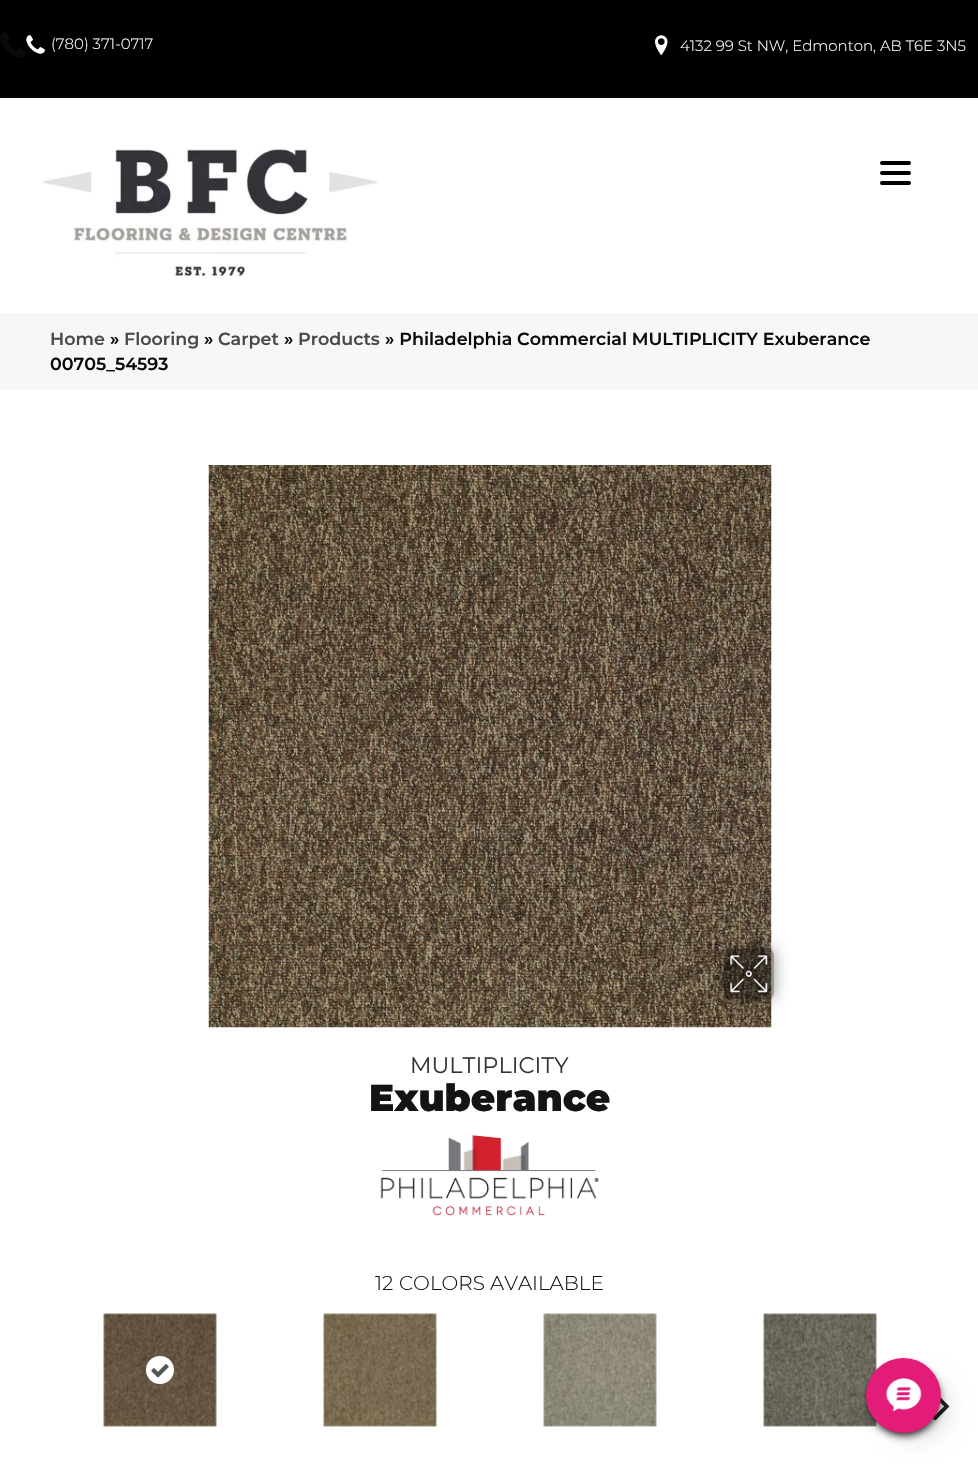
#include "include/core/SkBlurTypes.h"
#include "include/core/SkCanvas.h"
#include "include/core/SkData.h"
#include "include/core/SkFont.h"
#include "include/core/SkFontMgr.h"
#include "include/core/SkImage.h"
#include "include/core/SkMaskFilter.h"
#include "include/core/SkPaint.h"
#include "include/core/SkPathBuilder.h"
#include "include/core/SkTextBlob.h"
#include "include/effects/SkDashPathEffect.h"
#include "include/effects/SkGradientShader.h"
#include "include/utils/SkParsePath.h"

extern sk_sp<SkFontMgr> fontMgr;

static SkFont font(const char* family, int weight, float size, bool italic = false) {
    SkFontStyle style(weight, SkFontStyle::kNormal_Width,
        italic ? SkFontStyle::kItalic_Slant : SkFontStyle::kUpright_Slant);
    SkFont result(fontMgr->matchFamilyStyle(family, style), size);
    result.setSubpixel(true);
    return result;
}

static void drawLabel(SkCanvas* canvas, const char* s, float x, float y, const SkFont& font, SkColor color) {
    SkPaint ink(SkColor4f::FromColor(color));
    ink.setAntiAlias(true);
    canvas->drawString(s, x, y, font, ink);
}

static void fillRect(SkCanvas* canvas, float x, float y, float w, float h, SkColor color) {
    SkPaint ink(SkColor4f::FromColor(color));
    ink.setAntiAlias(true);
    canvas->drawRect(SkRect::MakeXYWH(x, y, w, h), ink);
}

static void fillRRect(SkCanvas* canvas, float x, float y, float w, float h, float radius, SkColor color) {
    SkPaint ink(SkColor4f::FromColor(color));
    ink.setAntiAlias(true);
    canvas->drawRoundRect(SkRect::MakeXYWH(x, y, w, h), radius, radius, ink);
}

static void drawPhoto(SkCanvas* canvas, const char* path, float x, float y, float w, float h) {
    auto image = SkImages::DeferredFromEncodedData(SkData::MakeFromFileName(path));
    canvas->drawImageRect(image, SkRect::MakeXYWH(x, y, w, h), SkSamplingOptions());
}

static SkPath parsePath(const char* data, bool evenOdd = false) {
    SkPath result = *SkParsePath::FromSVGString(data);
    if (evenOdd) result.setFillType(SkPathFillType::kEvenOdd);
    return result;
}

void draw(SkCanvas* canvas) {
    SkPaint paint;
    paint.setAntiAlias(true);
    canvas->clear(0xFFFFFFFF);
    fillRect(canvas, 0, 0, 978, 98, 0xFF000000);
    drawPhoto(canvas, "assets/img1.png", 0, 32, 26, 26);
    drawPhoto(canvas, "assets/img2.png", 26, 35, 19, 19);
    SkFont font1 = font("Montserrat", 300, 15);
    drawLabel(canvas, "(780) 371-0717", 51, 49, font1, 0xFFFFFFFF);
    drawPhoto(canvas, "assets/img3.png", 655, 35, 13, 21);
    drawLabel(canvas, "4132 99 St NW, Edmonton, AB T6E 3N5", 680, 51, font1, 0xFFFFFFFF);
    drawPhoto(canvas, "assets/img4.png", 42, 147, 337, 130);
    fillRect(canvas, 0, 313, 978, 77, 0xFFF7F7F7);
    SkFont font2 = font("Montserrat", 600, 17.5f);
    drawLabel(canvas, "Home", 50, 345, font2, 0xFF494949);
    drawLabel(canvas, "»", 110, 345, font2, 0xFF0A0A0A);
    drawLabel(canvas, "Flooring", 124, 345, font2, 0xFF494949);
    drawLabel(canvas, "»", 204, 345, font2, 0xFF0A0A0A);
    drawLabel(canvas, "Carpet", 218, 345, font2, 0xFF494949);
    drawLabel(canvas, "»", 284, 345, font2, 0xFF0A0A0A);
    drawLabel(canvas, "Products", 298, 345, font2, 0xFF494949);
    drawLabel(canvas, "» Philadelphia Commercial MULTIPLICITY Exuberance", 385, 345, font2, 0xFF0A0A0A);
    drawLabel(canvas, "00705_54593", 50, 370, font2, 0xFF0A0A0A);
    drawPhoto(canvas, "assets/img5.png", 208, 465, 564, 563);
    canvas->save();
    canvas->clipPath(parsePath("M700 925H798V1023H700ZM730 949H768C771.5 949 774 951.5 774 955V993C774 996.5 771.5 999 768 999H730C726.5 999 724 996.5 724 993V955C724 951.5 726.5 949 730 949Z", true), true);
    paint.setColor(0x69000000);
    paint.setMaskFilter(SkMaskFilter::MakeBlur(kNormal_SkBlurStyle, 7.5f));
    canvas->drawRoundRect(SkRect::MakeXYWH(724, 949, 50, 50), 6, 6, paint);
    paint.setMaskFilter(nullptr);
    canvas->restore();
    fillRRect(canvas, 724, 949, 50, 50, 6, 0x66000000);
    drawPhoto(canvas, "assets/img6.png", 727, 952, 45, 44);
    SkFont font3 = font("Montserrat", 400, 22.5f);
    drawLabel(canvas, "MULTIPLICITY", 410, 1073, font3, 0xFF333333);
    SkFont font4 = font("Montserrat", 900, 37.5f);
    drawLabel(canvas, "Exuberance", 369, 1111, font4, 0xFF141414);
    drawPhoto(canvas, "assets/img7.png", 380, 1135, 219, 81);
    SkFont font5 = font("Montserrat", 300, 20);
    drawLabel(canvas, "12", 375, 1290, font5, 0xFF141414);
    drawLabel(canvas, "COLORS AVAILABLE", 399, 1290, font5, 0xFF141414);
    drawPhoto(canvas, "assets/img8.png", 103, 1313, 114, 114);
    paint.setColor(0xFFFFFFFF);
    canvas->drawCircle(160, 1370, 14, paint);
    drawPhoto(canvas, "assets/img9.png", 151, 1364, 18, 14);
    drawPhoto(canvas, "assets/img10.png", 323, 1313, 114, 114);
    drawPhoto(canvas, "assets/img11.png", 543, 1313, 114, 114);
    drawPhoto(canvas, "assets/img12.png", 763, 1313, 114, 114);
    drawPhoto(canvas, "assets/img13.png", 932, 1397, 18, 24);
    fillRRect(canvas, 880, 171, 31, 4, 2, 0xFF000000);
    fillRRect(canvas, 880, 161, 31, 4, 2, 0xFF000000);
    fillRRect(canvas, 880, 181, 31, 4, 2, 0xFF000000);
    paint.setColor(0xFF000000);
    paint.setMaskFilter(SkMaskFilter::MakeBlur(kNormal_SkBlurStyle, 4));
    canvas->drawRoundRect(SkRect::MakeXYWH(869, 1365, 70, 70), 35, 35, paint);
    paint.setMaskFilter(nullptr);
    paint.setColor(0x1A000000);
    paint.setMaskFilter(SkMaskFilter::MakeBlur(kNormal_SkBlurStyle, 9.5f));
    canvas->drawRoundRect(SkRect::MakeXYWH(883, 1374, 67, 67), 33.5f, 33.5f, paint);
    paint.setMaskFilter(nullptr);
    paint.setColor(0xFFE31C79);
    canvas->drawCircle(903.5f, 1395.5f, 37.5f, paint);
    drawPhoto(canvas, "assets/img14.png", 885, 1378, 37, 34);
}
